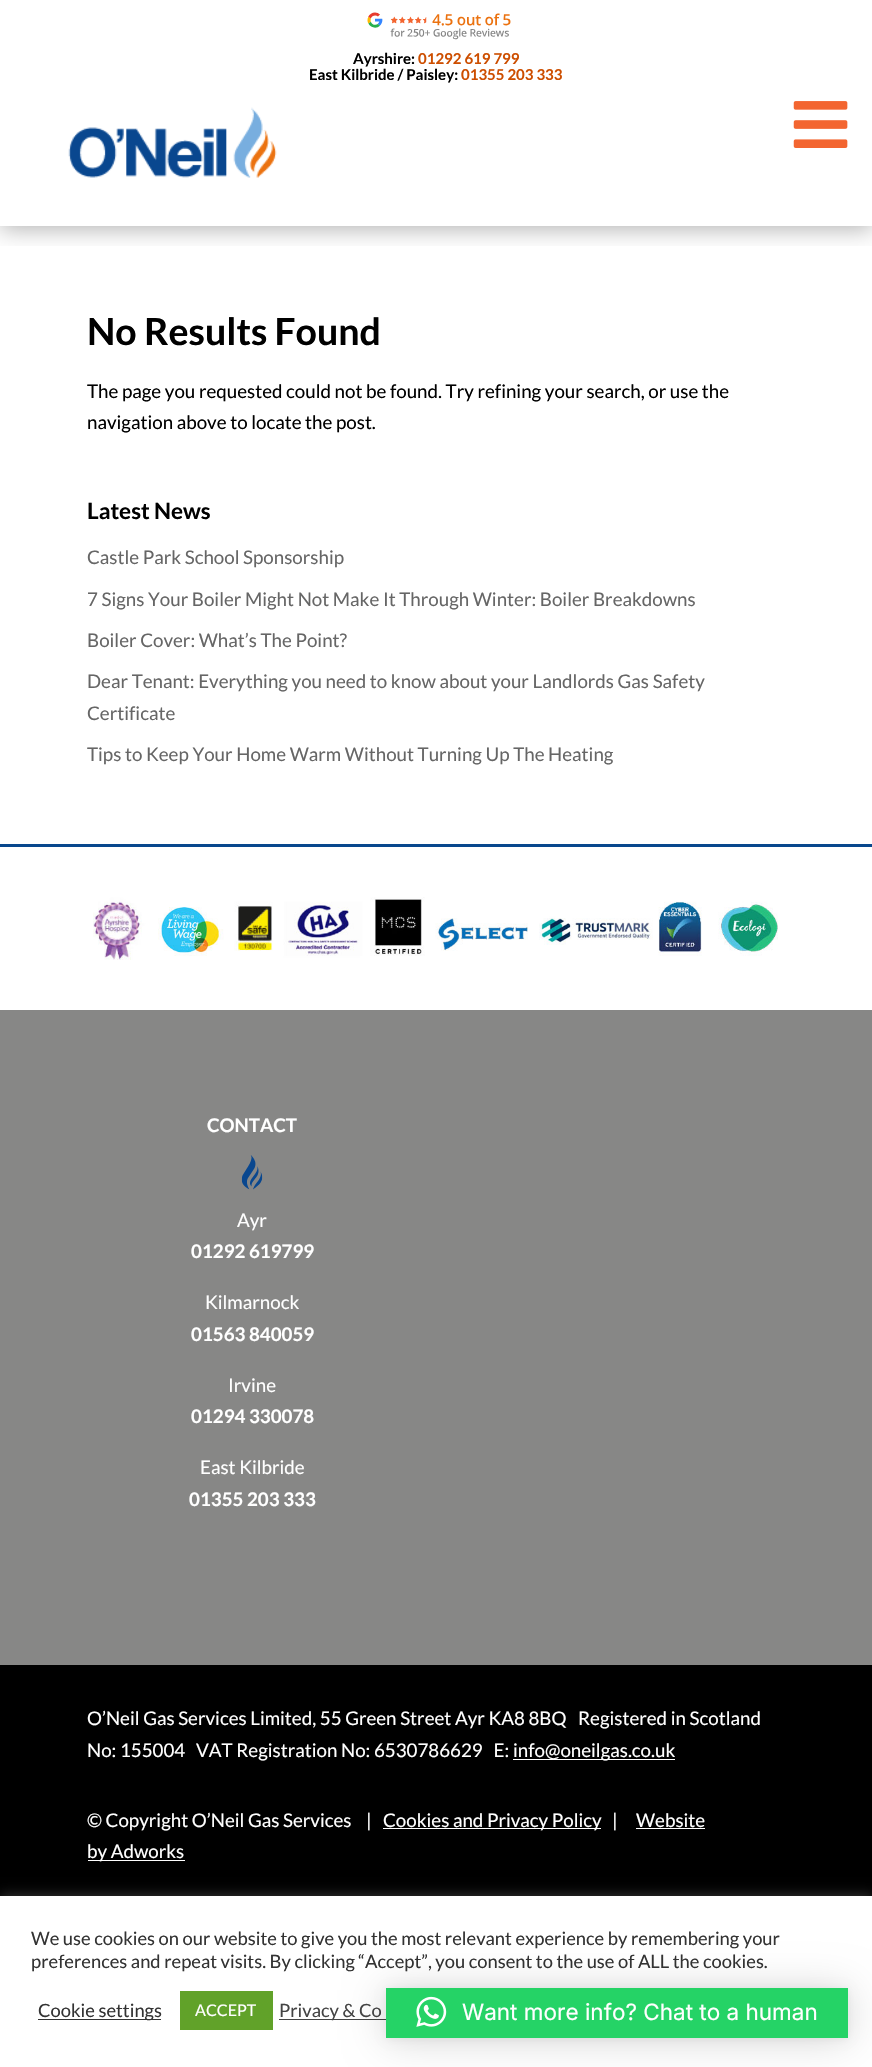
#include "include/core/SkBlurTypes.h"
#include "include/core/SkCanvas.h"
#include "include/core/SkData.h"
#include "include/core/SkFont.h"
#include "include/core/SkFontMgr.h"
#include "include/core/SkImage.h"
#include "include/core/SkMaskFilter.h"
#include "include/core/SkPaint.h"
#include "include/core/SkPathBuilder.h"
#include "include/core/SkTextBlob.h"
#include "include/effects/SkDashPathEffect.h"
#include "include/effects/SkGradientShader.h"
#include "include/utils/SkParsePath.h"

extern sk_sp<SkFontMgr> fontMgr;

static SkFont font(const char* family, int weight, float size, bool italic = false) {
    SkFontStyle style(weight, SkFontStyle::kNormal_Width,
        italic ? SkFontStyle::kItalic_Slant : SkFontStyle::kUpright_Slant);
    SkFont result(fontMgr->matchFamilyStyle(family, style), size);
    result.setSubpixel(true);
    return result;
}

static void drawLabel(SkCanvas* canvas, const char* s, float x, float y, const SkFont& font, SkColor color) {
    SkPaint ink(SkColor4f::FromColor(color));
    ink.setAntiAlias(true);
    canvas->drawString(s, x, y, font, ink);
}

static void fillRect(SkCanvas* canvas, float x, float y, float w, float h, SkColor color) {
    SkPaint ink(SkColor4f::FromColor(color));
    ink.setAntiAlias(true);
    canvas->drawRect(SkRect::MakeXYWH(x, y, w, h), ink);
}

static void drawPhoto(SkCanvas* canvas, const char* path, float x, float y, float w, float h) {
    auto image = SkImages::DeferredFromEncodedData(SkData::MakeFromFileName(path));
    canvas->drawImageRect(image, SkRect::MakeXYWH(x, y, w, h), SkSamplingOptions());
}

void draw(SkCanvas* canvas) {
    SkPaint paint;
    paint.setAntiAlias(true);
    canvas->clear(0xFFFFFFFF);
    canvas->save();
    canvas->clipRect(SkRect::MakeXYWH(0, 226, 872, 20));
    paint.setColor(0x4D000000);
    paint.setMaskFilter(SkMaskFilter::MakeBlur(kNormal_SkBlurStyle, 11));
    canvas->drawRect(SkRect::MakeXYWH(0, 3, 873, 226), paint);
    paint.setMaskFilter(nullptr);
    canvas->restore();
    drawPhoto(canvas, "assets/img1.png", 367, 12, 144, 28);
    SkFont font1 = font("Lato", 700, 15);
    drawLabel(canvas, "Ayrshire:", 353, 64, font1, 0xFF000000);
    drawLabel(canvas, "01292 619 799", 418, 64, font1, 0xFFCD4E00);
    drawLabel(canvas, "East Kilbride / Paisley:", 309, 80, font1, 0xFF000000);
    drawLabel(canvas, "01355 203 333", 461, 80, font1, 0xFFCD4E00);
    drawPhoto(canvas, "assets/img2.png", 68, 107, 209, 71);
    drawPhoto(canvas, "assets/img3.png", 793, 101, 55, 47);
    SkFont font2 = font("Lato", 700, 37.5f);
    drawLabel(canvas, "No Results Found", 87, 345, font2, 0xFF000000);
    SkFont font3 = font("Lato", 400, 18.75f);
    drawLabel(canvas, "The page you requested could not be found. Try refining your search, or use the", 87, 398, font3, 0xFF000000);
    drawLabel(canvas, "navigation above to locate the post.", 87, 429, font3, 0xFF000000);
    SkFont font4 = font("Lato", 700, 22.5f);
    drawLabel(canvas, "Latest News", 87, 519, font4, 0xFF000000);
    drawLabel(canvas, "Castle Park School Sponsorship", 87, 564, font3, 0xFF666666);
    drawLabel(canvas, "7 Signs Your Boiler Might Not Make It Through Winter: Boiler Breakdowns", 87, 606, font3, 0xFF666666);
    drawLabel(canvas, "Boiler Cover: What’s The Point?", 87, 647, font3, 0xFF666666);
    drawLabel(canvas, "Dear Tenant: Everything you need to know about your Landlords Gas Safety", 87, 688, font3, 0xFF666666);
    drawLabel(canvas, "Certificate", 87, 720, font3, 0xFF666666);
    drawLabel(canvas, "Tips to Keep Your Home Warm Without Turning Up The Heating", 87, 761, font3, 0xFF666666);
    fillRect(canvas, 0, 844, 872, 3, 0xFF08478D);
    drawPhoto(canvas, "assets/img4.png", 93, 897, 685, 63);
    fillRect(canvas, 0, 1010, 872, 655, 0xFF878786);
    SkFont font5 = font("Lato", 700, 18.75f);
    drawLabel(canvas, "CONTACT", 207, 1132, font5, 0xFFFFFFFF);
    drawPhoto(canvas, "assets/img5.png", 241, 1155, 22, 35);
    drawLabel(canvas, "Ayr", 237, 1227, font3, 0xFFFFFFFF);
    drawLabel(canvas, "01292 619799", 191, 1258, font5, 0xFFFFFFFF);
    drawLabel(canvas, "Kilmarnock", 205, 1309, font3, 0xFFFFFFFF);
    drawLabel(canvas, "01563 840059", 191, 1341, font5, 0xFFFFFFFF);
    drawLabel(canvas, "Irvine", 228, 1392, font3, 0xFFFFFFFF);
    drawLabel(canvas, "01294 330078", 191, 1423, font5, 0xFFFFFFFF);
    drawLabel(canvas, "East Kilbride", 200, 1474, font3, 0xFFFFFFFF);
    drawLabel(canvas, "01355 203 333", 189, 1506, font5, 0xFFFFFFFF);
    fillRect(canvas, 0, 1665, 872, 231, 0xFF000000);
    drawLabel(canvas, "O’Neil Gas Services Limited, 55 Green Street Ayr KA8 8BQ", 87, 1725, font3, 0xFFFFFFFF);
    drawLabel(canvas, "Registered in Scotland", 578, 1725, font3, 0xFFFFFFFF);
    drawLabel(canvas, "No: 155004   VAT Registration No: 6530786629   E:", 87, 1757, font3, 0xFFFFFFFF);
    fillRect(canvas, 513, 1759, 162, 1, 0xFFFFFFFF);
    drawLabel(canvas, "info@oneilgas.co.uk", 513, 1757, font3, 0xFFFFFFFF);
    drawLabel(canvas, "© Copyright O’Neil Gas Services", 87, 1827, font3, 0xFFFFFFFF);
    drawLabel(canvas, "|", 366, 1827, font3, 0xFFFFFFFF);
    fillRect(canvas, 383, 1828, 218, 1, 0xFFFFFFFF);
    drawLabel(canvas, "Cookies and Privacy Policy", 383, 1827, font3, 0xFFFFFFFF);
    drawLabel(canvas, "|", 612, 1827, font3, 0xFFFFFFFF);
    drawLabel(canvas, "Website", 636, 1827, font3, 0xFFFFFFFF);
    fillRect(canvas, 636, 1828, 69, 1, 0xFFFFFFFF);
    fillRect(canvas, 88, 1860, 97, 1, 0xFFFFFFFF);
    drawLabel(canvas, "by Adworks", 87, 1858, font3, 0xFFFFFFFF);
    paint.setColor(0x4DACABAB);
    paint.setMaskFilter(SkMaskFilter::MakeBlur(kNormal_SkBlurStyle, 6));
    canvas->drawRect(SkRect::MakeXYWH(0, 1895, 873, 171), paint);
    paint.setMaskFilter(nullptr);
    fillRect(canvas, 0, 1896, 872, 171, 0xFFFFFFFF);
    SkFont font6 = font("Lato", 400, 18.35f);
    drawLabel(canvas, "We use cookies on our website to give you the most relevant experience by remembering your", 31, 1945, font6, 0xFF333333);
    drawLabel(canvas, "preferences and repeat visits. By clicking “Accept”, you consent to the use of ALL the cookies.", 31, 1968, font6, 0xFF333333);
    fillRect(canvas, 38, 2019, 123, 1, 0xFF333333);
    drawLabel(canvas, "Cookie settings", 38, 2017, font6, 0xFF333333);
    fillRect(canvas, 180, 1991, 93, 39, 0xFF61A229);
    SkFont font7 = font("Lato", 400, 16);
    drawLabel(canvas, "ACCEPT", 195, 2016, font7, 0xFFFFFFFF);
    fillRect(canvas, 279, 2019, 107, 1, 0xFF444444);
    drawLabel(canvas, "Privacy & Co", 279, 2017, font6, 0xFF444444);
    paint.setColor(0x29000000);
    paint.setMaskFilter(SkMaskFilter::MakeBlur(kNormal_SkBlurStyle, 20));
    canvas->drawRect(SkRect::MakeXYWH(386, 1990, 462, 50), paint);
    paint.setMaskFilter(nullptr);
    paint.setColor(0x0F000000);
    paint.setMaskFilter(SkMaskFilter::MakeBlur(kNormal_SkBlurStyle, 4));
    canvas->drawRect(SkRect::MakeXYWH(386, 1989, 462, 50), paint);
    paint.setMaskFilter(nullptr);
    fillRect(canvas, 386, 1988, 462, 50, 0xFF25D366);
    drawPhoto(canvas, "assets/img6.png", 416, 1996, 31, 31);
    SkFont font8 = font("Inter", 400, 22.5f);
    drawLabel(canvas, "Want more info? Chat to a human", 462, 2020, font8, 0xFFFFFFFF);
}
